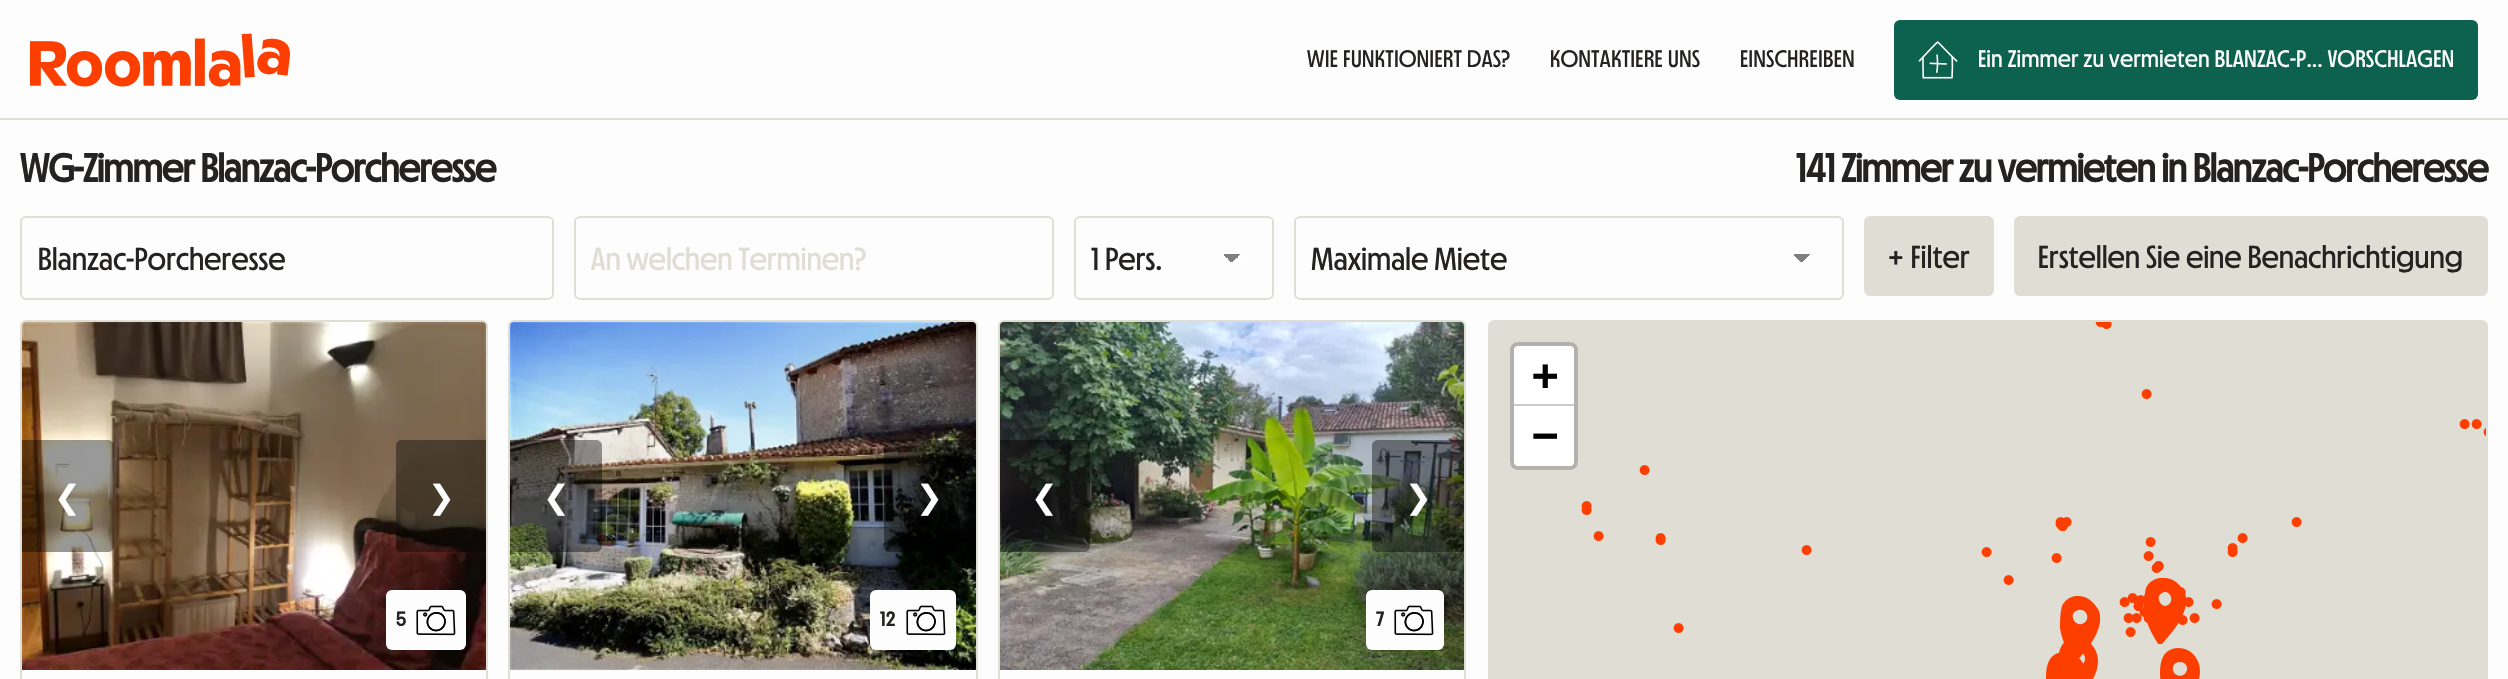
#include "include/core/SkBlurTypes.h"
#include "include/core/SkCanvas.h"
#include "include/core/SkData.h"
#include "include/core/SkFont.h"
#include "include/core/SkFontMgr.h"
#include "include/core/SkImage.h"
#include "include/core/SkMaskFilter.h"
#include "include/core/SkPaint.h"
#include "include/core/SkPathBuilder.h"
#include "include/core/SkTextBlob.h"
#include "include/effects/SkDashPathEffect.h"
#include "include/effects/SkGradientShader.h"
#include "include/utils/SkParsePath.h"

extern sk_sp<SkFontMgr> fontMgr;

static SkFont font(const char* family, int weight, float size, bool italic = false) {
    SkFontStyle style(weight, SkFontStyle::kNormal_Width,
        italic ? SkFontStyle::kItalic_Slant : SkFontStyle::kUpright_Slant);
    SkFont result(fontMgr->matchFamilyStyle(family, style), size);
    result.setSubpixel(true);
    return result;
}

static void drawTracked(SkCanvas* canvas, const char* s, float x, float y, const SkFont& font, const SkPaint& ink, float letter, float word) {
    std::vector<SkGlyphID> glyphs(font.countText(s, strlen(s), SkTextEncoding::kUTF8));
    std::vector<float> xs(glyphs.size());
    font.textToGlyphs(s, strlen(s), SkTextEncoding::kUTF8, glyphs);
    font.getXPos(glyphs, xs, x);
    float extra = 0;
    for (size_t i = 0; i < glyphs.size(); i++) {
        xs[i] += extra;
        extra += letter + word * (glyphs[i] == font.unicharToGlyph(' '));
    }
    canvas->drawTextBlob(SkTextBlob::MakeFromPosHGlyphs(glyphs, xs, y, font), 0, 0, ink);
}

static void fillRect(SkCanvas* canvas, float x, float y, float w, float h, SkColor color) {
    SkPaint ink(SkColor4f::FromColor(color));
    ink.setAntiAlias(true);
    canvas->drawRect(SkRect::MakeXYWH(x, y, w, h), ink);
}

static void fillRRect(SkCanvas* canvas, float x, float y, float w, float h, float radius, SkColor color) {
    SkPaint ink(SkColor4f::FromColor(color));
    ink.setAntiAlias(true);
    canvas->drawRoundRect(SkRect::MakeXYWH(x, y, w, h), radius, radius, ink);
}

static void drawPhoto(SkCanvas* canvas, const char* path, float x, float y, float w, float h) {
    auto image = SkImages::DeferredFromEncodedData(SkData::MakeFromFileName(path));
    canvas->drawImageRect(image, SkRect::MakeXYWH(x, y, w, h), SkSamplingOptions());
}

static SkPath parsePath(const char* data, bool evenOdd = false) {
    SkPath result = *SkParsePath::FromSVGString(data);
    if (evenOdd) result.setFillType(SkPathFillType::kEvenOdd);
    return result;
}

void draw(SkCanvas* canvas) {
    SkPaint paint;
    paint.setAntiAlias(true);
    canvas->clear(0xFFFDFDFD);
    fillRect(canvas, 0, 118, 2508, 2, 0xFFE0DDD4);
    drawPhoto(canvas, "assets/img1.png", 30, 33, 260, 54);
    SkFont font1 = font("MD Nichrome", 400, 24);
    paint.setColor(0xFF242322);
    drawTracked(canvas, "WIE FUNKTIONIERT DAS?", 1307, 67, font1, paint, 0.5f, 0);
    drawTracked(canvas, "KONTAKTIERE UNS", 1550, 67, font1, paint, 0.5f, 0);
    drawTracked(canvas, "EINSCHREIBEN", 1740, 67, font1, paint, 0.5f, 0);
    fillRRect(canvas, 1894, 20, 584, 80, 6, 0xFF0C624E);
    drawPhoto(canvas, "assets/img2.png", 1918, 41, 40, 38);
    paint.setColor(0xFFFDFDFD);
    drawTracked(canvas, "Ein Zimmer zu vermieten BLANZAC-P... VORSCHLAGEN", 1978, 67, font1, paint, 0.5f, 0);
    SkFont font2 = font("MD Nichrome", 700, 40);
    paint.setColor(0xFF242322);
    drawTracked(canvas, "WG-Zimmer Blanzac-Porcheresse", 20, 182, font2, paint, -0.4f, 0);
    drawTracked(canvas, "141 Zimmer zu vermieten in Blanzac-Porcheresse", 1796, 182, font2, paint, -0.4f, 0);
    paint.setStroke(true);
    paint.setStrokeWidth(2);
    paint.setColor(0xFFE0DDD4);
    canvas->drawRoundRect(SkRect::MakeXYWH(21, 217, 532, 82), 5, 5, paint);
    SkFont font3 = font("MD Nichrome", 400, 32);
    paint.setStroke(false);
    paint.setColor(0xFF242322);
    drawTracked(canvas, "Blanzac-Porcheresse", 38, 270, font3, paint, 0.3f, 0);
    paint.setStroke(true);
    paint.setColor(0xFFE0DDD4);
    canvas->drawRoundRect(SkRect::MakeXYWH(575, 217, 478, 82), 5, 5, paint);
    paint.setStroke(false);
    drawTracked(canvas, "An welchen Terminen?", 591, 270, font3, paint, 0.3f, 0);
    {
        const SkColor colors[] = {0xFF808080, 0xFFFFFFFF};
        const float stops[] = {0.5f, 0.5f};
        const SkPoint ends[] = {{1232, 253}, {1242, 263}};
        paint.setShader(SkGradientShader::MakeLinear(ends, colors, stops, 2, SkTileMode::kClamp));
        paint.setAlpha(255);
    }
    canvas->drawRect(SkRect::MakeXYWH(1232, 254, 9, 8), paint);
    {
        const SkColor colors[] = {0xFFFFFFFF, 0xFF808080};
        const float stops[] = {0.5f, 0.5f};
        const SkPoint ends[] = {{1222, 263}, {1232, 253}};
        paint.setShader(SkGradientShader::MakeLinear(ends, colors, stops, 2, SkTileMode::kClamp));
        paint.setAlpha(255);
    }
    canvas->drawRect(SkRect::MakeXYWH(1224, 254, 8, 8), paint);
    paint.setStroke(true);
    paint.setShader(nullptr);
    paint.setColor(0xFFE0DDD4);
    canvas->drawRoundRect(SkRect::MakeXYWH(1075, 217, 198, 82), 5, 5, paint);
    paint.setStroke(false);
    paint.setColor(0xFF242322);
    drawTracked(canvas, "1 Pers.", 1091, 270, font3, paint, 0.3f, 0);
    {
        const SkColor colors[] = {0xFF808080, 0xFFFFFFFF};
        const float stops[] = {0.5f, 0.5f};
        const SkPoint ends[] = {{1802, 253}, {1812, 263}};
        paint.setShader(SkGradientShader::MakeLinear(ends, colors, stops, 2, SkTileMode::kClamp));
        paint.setAlpha(255);
    }
    canvas->drawRect(SkRect::MakeXYWH(1802, 254, 9, 8), paint);
    {
        const SkColor colors[] = {0xFFFFFFFF, 0xFF808080};
        const float stops[] = {0.5f, 0.5f};
        const SkPoint ends[] = {{1792, 263}, {1802, 253}};
        paint.setShader(SkGradientShader::MakeLinear(ends, colors, stops, 2, SkTileMode::kClamp));
        paint.setAlpha(255);
    }
    canvas->drawRect(SkRect::MakeXYWH(1794, 254, 8, 8), paint);
    paint.setStroke(true);
    paint.setShader(nullptr);
    paint.setColor(0xFFE0DDD4);
    canvas->drawRoundRect(SkRect::MakeXYWH(1295, 217, 548, 82), 5, 5, paint);
    paint.setStroke(false);
    paint.setColor(0xFF242322);
    drawTracked(canvas, "Maximale Miete", 1311, 270, font3, paint, 0.3f, 0);
    fillRRect(canvas, 1864, 216, 130, 80, 6, 0xFFE0DDD4);
    drawTracked(canvas, "+ Filter", 1887, 268, font3, paint, 0.3f, 0);
    fillRRect(canvas, 2014, 216, 474, 80, 6, 0xFFE0DDD4);
    drawTracked(canvas, "Erstellen Sie eine Benachrichtigung", 2038, 268, font3, paint, 0.3f, 0);
    paint.setColor(0xFFE0DDD4);
    canvas->drawRoundRect(SkRect::MakeXYWH(1489, 321, 998, 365), 5, 5, paint);
    paint.setStroke(true);
    canvas->drawRoundRect(SkRect::MakeXYWH(1489, 321, 998, 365), 5, 5, paint);
    paint.setStrokeWidth(4);
    paint.setColor(0xFFB3B1AA);
    canvas->drawRoundRect(SkRect::MakeXYWH(1512, 344, 64, 124), 6, 6, paint);
    paint.setStroke(false);
    paint.setColor(0xFFFFFFFF);
    canvas->drawPath(parsePath("M1518 346H1570C1572 346 1574 348 1574 350V406H1514V350C1514 348 1516 346 1518 346Z"), paint);
    fillRect(canvas, 1514, 404, 60, 2, 0xFFCCCCCC);
    SkFont font4 = font("DejaVu Sans Mono", 700, 44);
    paint.setColor(0xFF000000);
    drawTracked(canvas, "+", 1532, 390, font4, paint, 0.3f, 0);
    paint.setColor(0xFFFFFFFF);
    canvas->drawPath(parsePath("M1514 406H1574V462C1574 464 1572 466 1570 466H1518C1516 466 1514 464 1514 462Z"), paint);
    paint.setColor(0xFF000000);
    drawTracked(canvas, "−", 1532, 450, font4, paint, 0.3f, 0);
    drawPhoto(canvas, "assets/img3.png", 1581, 322, 905, 315);
    canvas->save();
    canvas->clipRect(SkRect::MakeXYWH(2144, 578, 40, 66));
    paint.setColor(0xFFFC3F00);
    canvas->drawPath(parsePath("M2174 582C2165 575 2151 577 2146 588C2144 595 2144 603 2144 610C2146 623 2152 635 2159 645C2171 632 2189 611 2183 593C2181 589 2178 585 2174 582ZM2168 605C2160 610 2152 597 2160 593C2168 588 2176 599 2168 605Z"), paint);
    canvas->restore();
    canvas->save();
    canvas->clipRect(SkRect::MakeXYWH(2060, 596, 40, 66));
    canvas->drawPath(parsePath("M2090 600C2081 593 2067 595 2062 606C2060 613 2060 621 2060 628C2062 641 2068 653 2075 663C2087 650 2105 629 2099 611C2097 607 2094 603 2090 600ZM2084 623C2076 628 2068 615 2076 611C2084 606 2092 617 2084 623Z"), paint);
    canvas->restore();
    canvas->save();
    canvas->clipRect(SkRect::MakeXYWH(2146, 578, 40, 66));
    canvas->drawPath(parsePath("M2176 582C2167 575 2153 577 2148 588C2146 595 2146 603 2146 610C2148 623 2154 635 2161 645C2173 632 2191 611 2185 593C2183 589 2180 585 2176 582ZM2170 605C2162 610 2154 597 2162 593C2170 588 2178 599 2170 605Z"), paint);
    canvas->restore();
    drawPhoto(canvas, "assets/img4.png", 2058, 642, 40, 37);
    drawPhoto(canvas, "assets/img5.png", 2160, 648, 40, 31);
    drawPhoto(canvas, "assets/img6.png", 2046, 652, 37, 27);
    fillRect(canvas, 2058, 671, 2, 6, 0xFFFC3F00);
    fillRect(canvas, 2046, 678, 1, 1, 0xFFFC4102);
    paint.setStroke(true);
    paint.setStrokeWidth(2);
    paint.setColor(0xFFE0DDD4);
    canvas->drawRoundRect(SkRect::MakeXYWH(21, 321, 466, 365), 5, 5, paint);
    drawPhoto(canvas, "assets/img7.png", 22, 322, 464, 348);
    paint.setStroke(false);
    paint.setColor(0x66000000);
    canvas->drawPath(parsePath("M22 440H108C111.5 440 114 442.5 114 446V546C114 549.5 111.5 552 108 552H22Z"), paint);
    SkFont font5 = font("DejaVu Sans", 400, 32);
    paint.setColor(0xFFFDFDFD);
    drawTracked(canvas, "❮", 54, 508, font5, paint, 0.3f, 0);
    paint.setColor(0x66000000);
    canvas->drawPath(parsePath("M402 440H486V552H402C398.5 552 396 549.5 396 546V446C396 442.5 398.5 440 402 440Z"), paint);
    paint.setColor(0xFFFDFDFD);
    drawTracked(canvas, "❯", 428, 508, font5, paint, 0.3f, 0);
    fillRRect(canvas, 386, 590, 80, 60, 6, 0xFFFDFDFD);
    SkFont font6 = font("MD Nichrome", 700, 20);
    paint.setColor(0xFF242322);
    drawTracked(canvas, "5", 396, 626, font6, paint, 1, 0);
    drawPhoto(canvas, "assets/img8.png", 416, 605, 40, 31);
    paint.setStroke(true);
    paint.setColor(0xFFE0DDD4);
    canvas->drawRoundRect(SkRect::MakeXYWH(509, 321, 468, 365), 5, 5, paint);
    drawPhoto(canvas, "assets/img9.png", 510, 322, 466, 348);
    paint.setStroke(false);
    paint.setColor(0x66000000);
    canvas->drawPath(parsePath("M510 440H596C599.5 440 602 442.5 602 446V546C602 549.5 599.5 552 596 552H510Z"), paint);
    paint.setColor(0xFFFDFDFD);
    drawTracked(canvas, "❮", 543, 508, font5, paint, 0.3f, 0);
    paint.setColor(0x66000000);
    canvas->drawPath(parsePath("M890 440H976V552H890C886.5 552 884 549.5 884 546V446C884 442.5 886.5 440 890 440Z"), paint);
    paint.setColor(0xFFFDFDFD);
    drawTracked(canvas, "❯", 916, 508, font5, paint, 0.3f, 0);
    fillRRect(canvas, 870, 590, 86, 60, 6, 0xFFFDFDFD);
    paint.setColor(0xFF242322);
    drawTracked(canvas, "12", 880, 626, font6, paint, 1, 0);
    drawPhoto(canvas, "assets/img8.png", 906, 605, 40, 31);
    paint.setStroke(true);
    paint.setColor(0xFFE0DDD4);
    canvas->drawRoundRect(SkRect::MakeXYWH(999, 321, 466, 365), 5, 5, paint);
    drawPhoto(canvas, "assets/img10.png", 1000, 322, 464, 348);
    paint.setStroke(false);
    paint.setColor(0x66000000);
    canvas->drawPath(parsePath("M1000 440H1084C1087.5 440 1090 442.5 1090 446V546C1090 549.5 1087.5 552 1084 552H1000Z"), paint);
    paint.setColor(0xFFFDFDFD);
    drawTracked(canvas, "❮", 1031, 508, font5, paint, 0.3f, 0);
    paint.setColor(0x66000000);
    canvas->drawPath(parsePath("M1378 440H1464V552H1378C1374.5 552 1372 549.5 1372 546V446C1372 442.5 1374.5 440 1378 440Z"), paint);
    paint.setColor(0xFFFDFDFD);
    drawTracked(canvas, "❯", 1405, 508, font5, paint, 0.3f, 0);
    fillRRect(canvas, 1366, 590, 78, 60, 6, 0xFFFDFDFD);
    paint.setColor(0xFF242322);
    drawTracked(canvas, "7", 1376, 626, font6, paint, 1, 0);
    drawPhoto(canvas, "assets/img8.png", 1394, 605, 40, 31);
}
